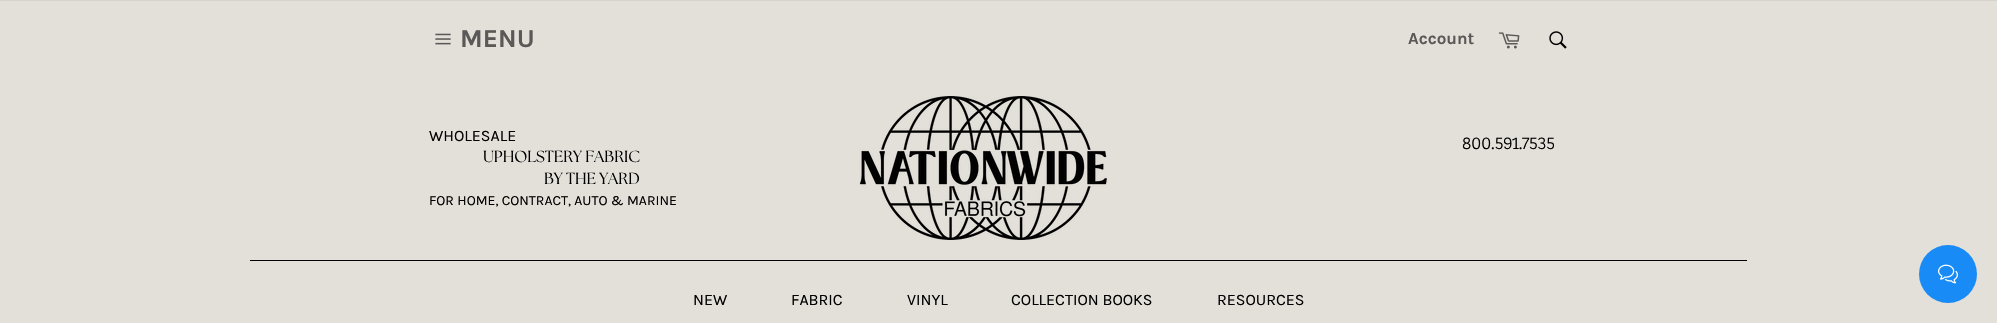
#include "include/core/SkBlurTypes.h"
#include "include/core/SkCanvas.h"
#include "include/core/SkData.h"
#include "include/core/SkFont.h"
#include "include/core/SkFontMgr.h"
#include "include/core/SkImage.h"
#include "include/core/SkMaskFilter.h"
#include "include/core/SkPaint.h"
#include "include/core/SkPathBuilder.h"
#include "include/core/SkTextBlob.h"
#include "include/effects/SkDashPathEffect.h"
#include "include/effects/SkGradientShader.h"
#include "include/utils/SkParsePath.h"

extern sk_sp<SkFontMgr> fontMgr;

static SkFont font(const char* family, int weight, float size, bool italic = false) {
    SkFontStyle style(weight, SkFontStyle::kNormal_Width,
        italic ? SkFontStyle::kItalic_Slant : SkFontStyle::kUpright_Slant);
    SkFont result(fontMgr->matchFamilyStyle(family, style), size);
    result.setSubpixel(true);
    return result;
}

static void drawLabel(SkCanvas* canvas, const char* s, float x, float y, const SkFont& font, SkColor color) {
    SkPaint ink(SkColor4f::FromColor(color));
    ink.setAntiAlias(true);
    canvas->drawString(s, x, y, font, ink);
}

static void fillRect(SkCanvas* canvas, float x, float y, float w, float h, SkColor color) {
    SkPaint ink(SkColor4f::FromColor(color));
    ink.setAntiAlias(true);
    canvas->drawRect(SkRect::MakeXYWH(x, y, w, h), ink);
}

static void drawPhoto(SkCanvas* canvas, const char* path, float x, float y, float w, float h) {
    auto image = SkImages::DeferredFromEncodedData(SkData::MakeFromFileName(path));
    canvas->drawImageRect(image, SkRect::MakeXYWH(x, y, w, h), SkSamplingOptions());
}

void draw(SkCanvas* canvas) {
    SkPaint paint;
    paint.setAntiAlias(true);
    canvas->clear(0xFFE3DFD9);
    fillRect(canvas, 0, 0, 1997, 1, 0xFFD8D3CA);
    drawPhoto(canvas, "assets/img1.png", 435, 33, 16, 12);
    SkFont font1 = font("Karla", 700, 26);
    drawLabel(canvas, "MENU", 460, 47, font1, 0xFF5B5957);
    SkFont font2 = font("Karla", 700, 17);
    drawLabel(canvas, "Account", 1408, 44, font2, 0xFF5B5957);
    drawPhoto(canvas, "assets/img2.png", 1498, 32, 22, 17);
    drawPhoto(canvas, "assets/img3.png", 1549, 31, 18, 18);
    SkFont font3 = font("Karla", 400, 16);
    drawLabel(canvas, "WHOLESALE", 429, 141, font3, 0xFF000000);
    SkFont font4 = font("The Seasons", 400, 16);
    drawLabel(canvas, "UPHOLSTERY FABRIC", 483, 162, font4, 0xFF000000);
    drawLabel(canvas, "BY THE YARD", 544, 184, font4, 0xFF000000);
    SkFont font5 = font("Karla", 400, 14);
    drawLabel(canvas, "FOR HOME, CONTRACT, AUTO & MARINE", 429, 205, font5, 0xFF000000);
    drawPhoto(canvas, "assets/img4.png", 859, 96, 248, 144);
    SkFont font6 = font("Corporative", 400, 16);
    drawLabel(canvas, "800.591.7535", 1462, 149, font6, 0xFF000000);
    fillRect(canvas, 250, 260, 1497, 1, 0xFF000000);
    drawLabel(canvas, "NEW", 693, 305, font3, 0xFF000000);
    drawLabel(canvas, "FABRIC", 791, 305, font3, 0xFF000000);
    drawLabel(canvas, "VINYL", 907, 305, font3, 0xFF000000);
    drawLabel(canvas, "COLLECTION BOOKS", 1011, 305, font3, 0xFF000000);
    drawLabel(canvas, "RESOURCES", 1217, 305, font3, 0xFF000000);
    paint.setColor(0xFF188BF6);
    canvas->drawCircle(1948, 274, 29, paint);
    drawPhoto(canvas, "assets/img5.png", 1938, 264, 20, 20);
}
